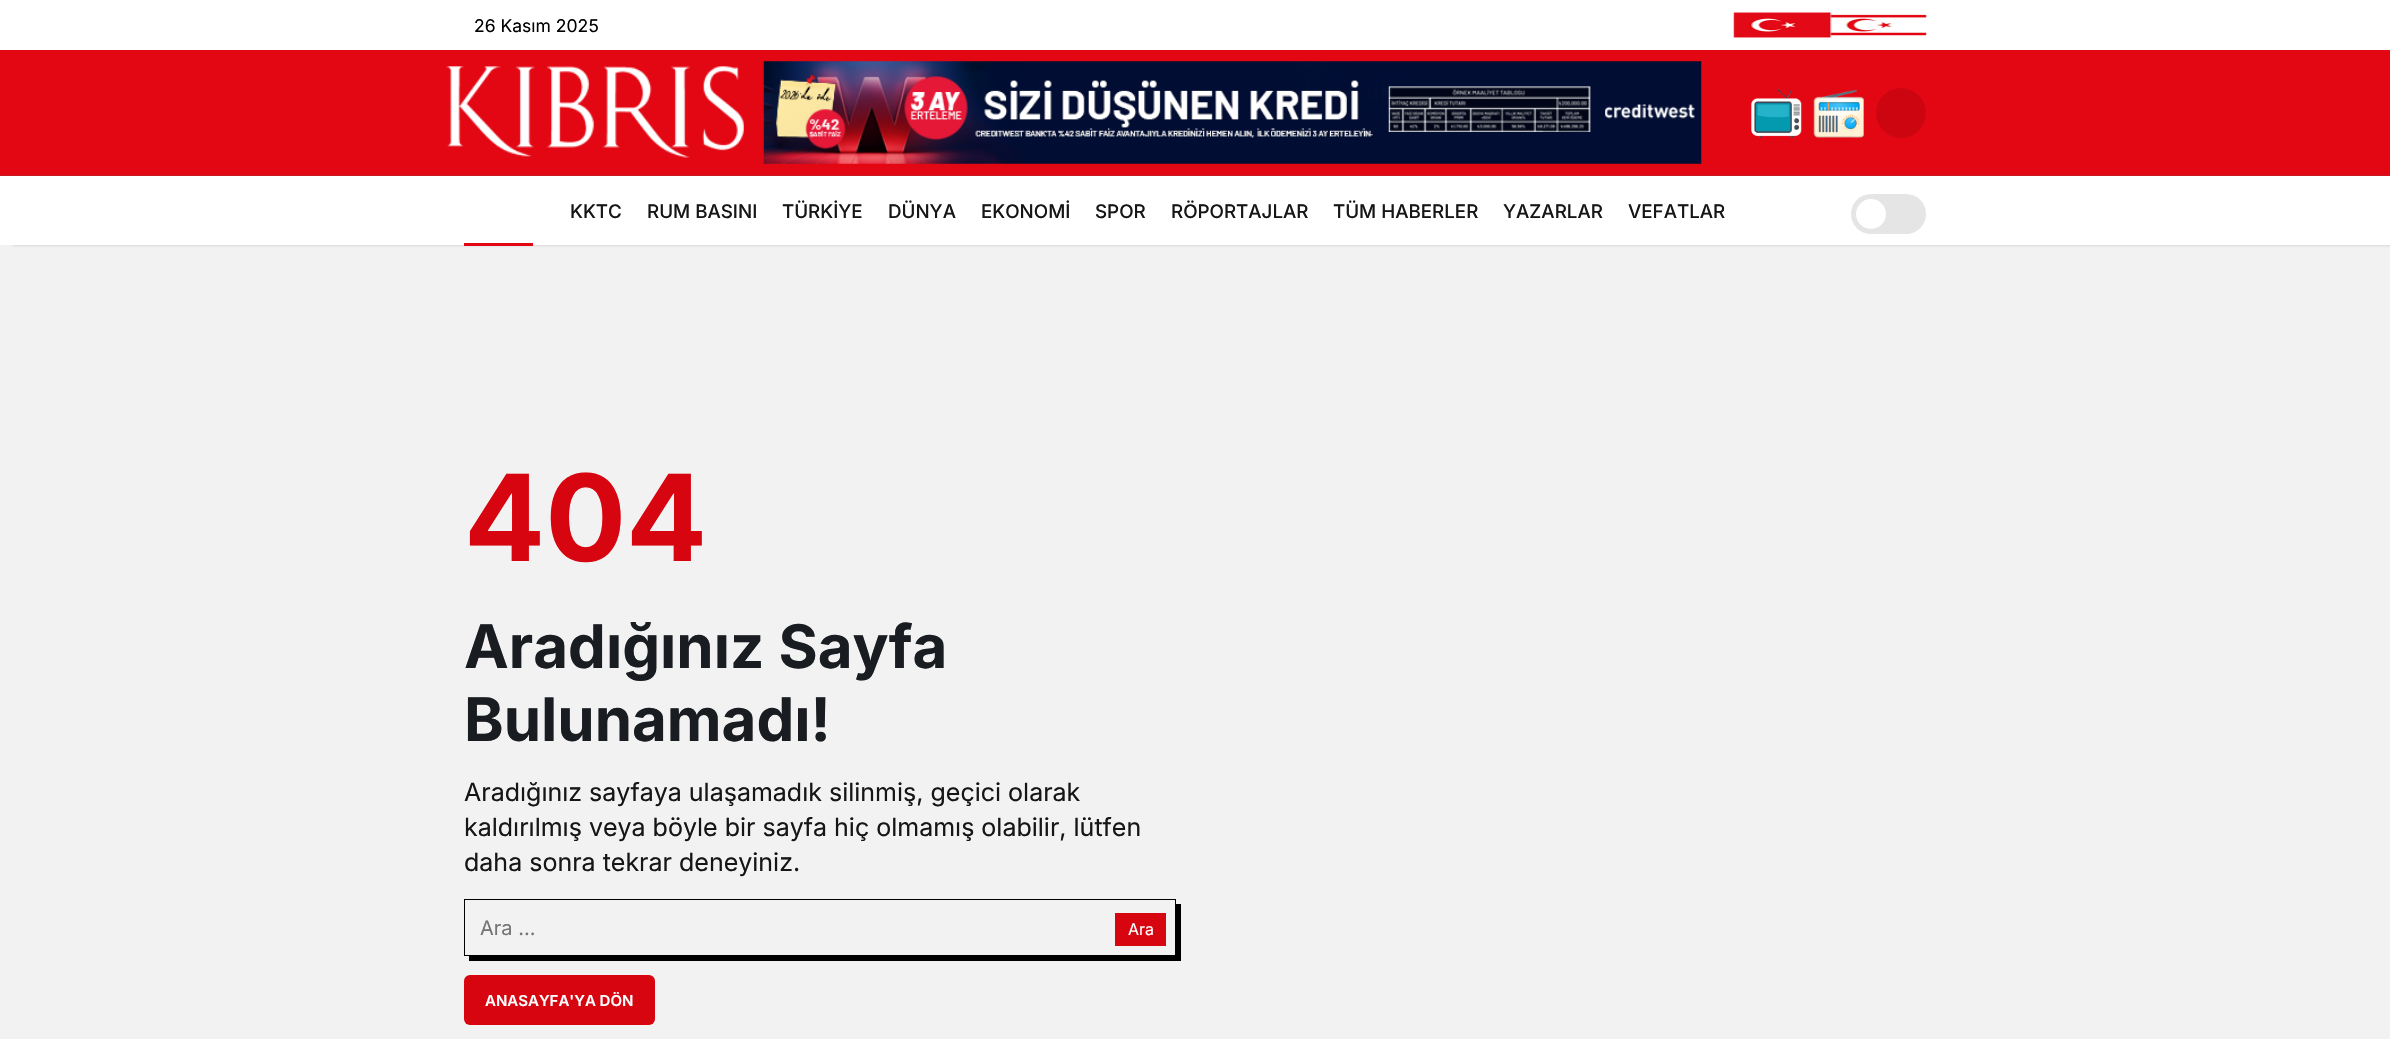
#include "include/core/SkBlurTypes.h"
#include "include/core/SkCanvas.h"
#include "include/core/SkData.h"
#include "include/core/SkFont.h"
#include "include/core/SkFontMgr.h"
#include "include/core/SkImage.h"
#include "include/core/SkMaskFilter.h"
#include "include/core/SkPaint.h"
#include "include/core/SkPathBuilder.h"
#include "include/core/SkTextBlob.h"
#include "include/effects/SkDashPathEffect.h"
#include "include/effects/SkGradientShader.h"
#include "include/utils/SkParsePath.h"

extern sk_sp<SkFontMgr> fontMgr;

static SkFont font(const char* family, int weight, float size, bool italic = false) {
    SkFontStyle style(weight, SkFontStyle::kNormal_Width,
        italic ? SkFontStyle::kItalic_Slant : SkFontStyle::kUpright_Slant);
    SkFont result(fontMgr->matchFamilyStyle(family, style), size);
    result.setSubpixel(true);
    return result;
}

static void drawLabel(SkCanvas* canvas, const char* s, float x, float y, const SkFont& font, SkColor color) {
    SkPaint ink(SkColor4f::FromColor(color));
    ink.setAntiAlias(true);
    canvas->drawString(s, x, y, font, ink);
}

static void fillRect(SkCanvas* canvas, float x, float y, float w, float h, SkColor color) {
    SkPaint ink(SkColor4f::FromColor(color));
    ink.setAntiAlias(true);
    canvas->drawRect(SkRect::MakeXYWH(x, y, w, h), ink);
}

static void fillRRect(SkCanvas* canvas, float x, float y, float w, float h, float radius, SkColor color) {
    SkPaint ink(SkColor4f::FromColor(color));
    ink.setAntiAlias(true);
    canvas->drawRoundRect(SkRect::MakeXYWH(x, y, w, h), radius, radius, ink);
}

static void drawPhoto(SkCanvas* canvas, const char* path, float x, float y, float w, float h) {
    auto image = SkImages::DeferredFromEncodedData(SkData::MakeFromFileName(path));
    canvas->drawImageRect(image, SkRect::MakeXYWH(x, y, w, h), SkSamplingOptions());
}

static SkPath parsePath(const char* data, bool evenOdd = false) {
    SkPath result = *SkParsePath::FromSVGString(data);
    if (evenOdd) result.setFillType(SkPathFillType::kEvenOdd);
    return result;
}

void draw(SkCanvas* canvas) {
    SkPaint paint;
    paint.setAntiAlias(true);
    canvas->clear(0xFFF2F2F3);
    paint.setColor(0x1A000000);
    paint.setMaskFilter(SkMaskFilter::MakeBlur(kNormal_SkBlurStyle, 1));
    canvas->drawRect(SkRect::MakeXYWH(13, 178, 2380, 68), paint);
    paint.setMaskFilter(nullptr);
    fillRect(canvas, 0, 50, 2390, 125, 0xFFE30613);
    fillRect(canvas, 0, 175, 2390, 1, 0xFFC81825);
    fillRect(canvas, 0, 0, 2390, 50, 0xFFFFFFFF);
    SkFont font1 = font("Inter", 400, 17.5f);
    drawLabel(canvas, "26 Kasım 2025", 474, 32, font1, 0xFF000000);
    drawPhoto(canvas, "assets/img1.png", 1733, 12, 194, 26);
    drawPhoto(canvas, "assets/img2.png", 446, 66, 298, 92);
    drawPhoto(canvas, "assets/img3.png", 763, 61, 939, 103);
    drawPhoto(canvas, "assets/img4.png", 1751, 89, 51, 49);
    drawPhoto(canvas, "assets/img5.png", 1813, 89, 51, 49);
    paint.setColor(0xFFCC0511);
    canvas->drawCircle(1901, 113, 25, paint);
    fillRect(canvas, 0, 176, 2390, 69, 0xFFFFFFFF);
    SkFont font2 = font("Inter", 500, 18.75f);
    drawLabel(canvas, "KKTC", 570, 218, font2, 0xFF161616);
    drawLabel(canvas, "RUM BASINI", 647, 218, font2, 0xFF161616);
    drawLabel(canvas, "TÜRKİYE", 782, 218, font2, 0xFF161616);
    drawLabel(canvas, "DÜNYA", 888, 218, font2, 0xFF161616);
    drawLabel(canvas, "EKONOMİ", 981, 218, font2, 0xFF161616);
    drawLabel(canvas, "SPOR", 1095, 218, font2, 0xFF161616);
    drawLabel(canvas, "RÖPORTAJLAR", 1171, 218, font2, 0xFF161616);
    drawLabel(canvas, "TÜM HABERLER", 1333, 218, font2, 0xFF161616);
    drawLabel(canvas, "YAZARLAR", 1503, 218, font2, 0xFF161616);
    drawLabel(canvas, "VEFATLAR", 1628, 218, font2, 0xFF161616);
    fillRRect(canvas, 1851, 194, 75, 40, 20, 0xFFE5E5E5);
    paint.setColor(0xFFFFFFFF);
    canvas->drawCircle(1871, 214, 15, paint);
    fillRect(canvas, 464, 243, 69, 3, 0xFFE30613);
    SkFont font3 = font("Inter", 700, 120);
    drawLabel(canvas, "404", 464, 561, font3, 0xFFD7050F);
    SkFont font4 = font("Inter", 700, 60);
    drawLabel(canvas, "Aradığınız Sayfa", 464, 668, font4, 0xFF191C20);
    drawLabel(canvas, "Bulunamadı!", 464, 741, font4, 0xFF191C20);
    SkFont font5 = font("Inter", 400, 25);
    drawLabel(canvas, "Aradığınız sayfaya ulaşamadık silinmiş, geçici olarak", 464, 801, font5, 0xFF161616);
    drawLabel(canvas, "kaldırılmış veya böyle bir sayfa hiç olmamış olabilir, lütfen", 464, 836, font5, 0xFF161616);
    drawLabel(canvas, "daha sonra tekrar deneyiniz.", 464, 871, font5, 0xFF161616);
    paint.setColor(0xFF000000);
    canvas->drawPath(parsePath("M469 956V961H1181V904H1176V956Z"), paint);
    paint.setStroke(true);
    paint.setStrokeWidth(1);
    canvas->drawRect(SkRect::MakeXYWH(464.5f, 899.5f, 711, 56), paint);
    SkFont font6 = font("Inter", 400, 20);
    drawLabel(canvas, "Ara …", 480, 935, font6, 0xFF757575);
    fillRect(canvas, 1115, 913, 51, 33, 0xFFD7050F);
    SkFont font7 = font("Inter", 400, 16);
    drawLabel(canvas, "Ara", 1128, 935, font7, 0xFFFFFFFF);
    fillRRect(canvas, 464, 975, 191, 50, 6, 0xFFD7050F);
    SkFont font8 = font("Inter", 600, 15);
    drawLabel(canvas, "ANASAYFA'YA DÖN", 485, 1006, font8, 0xFFFFFFFF);
}
